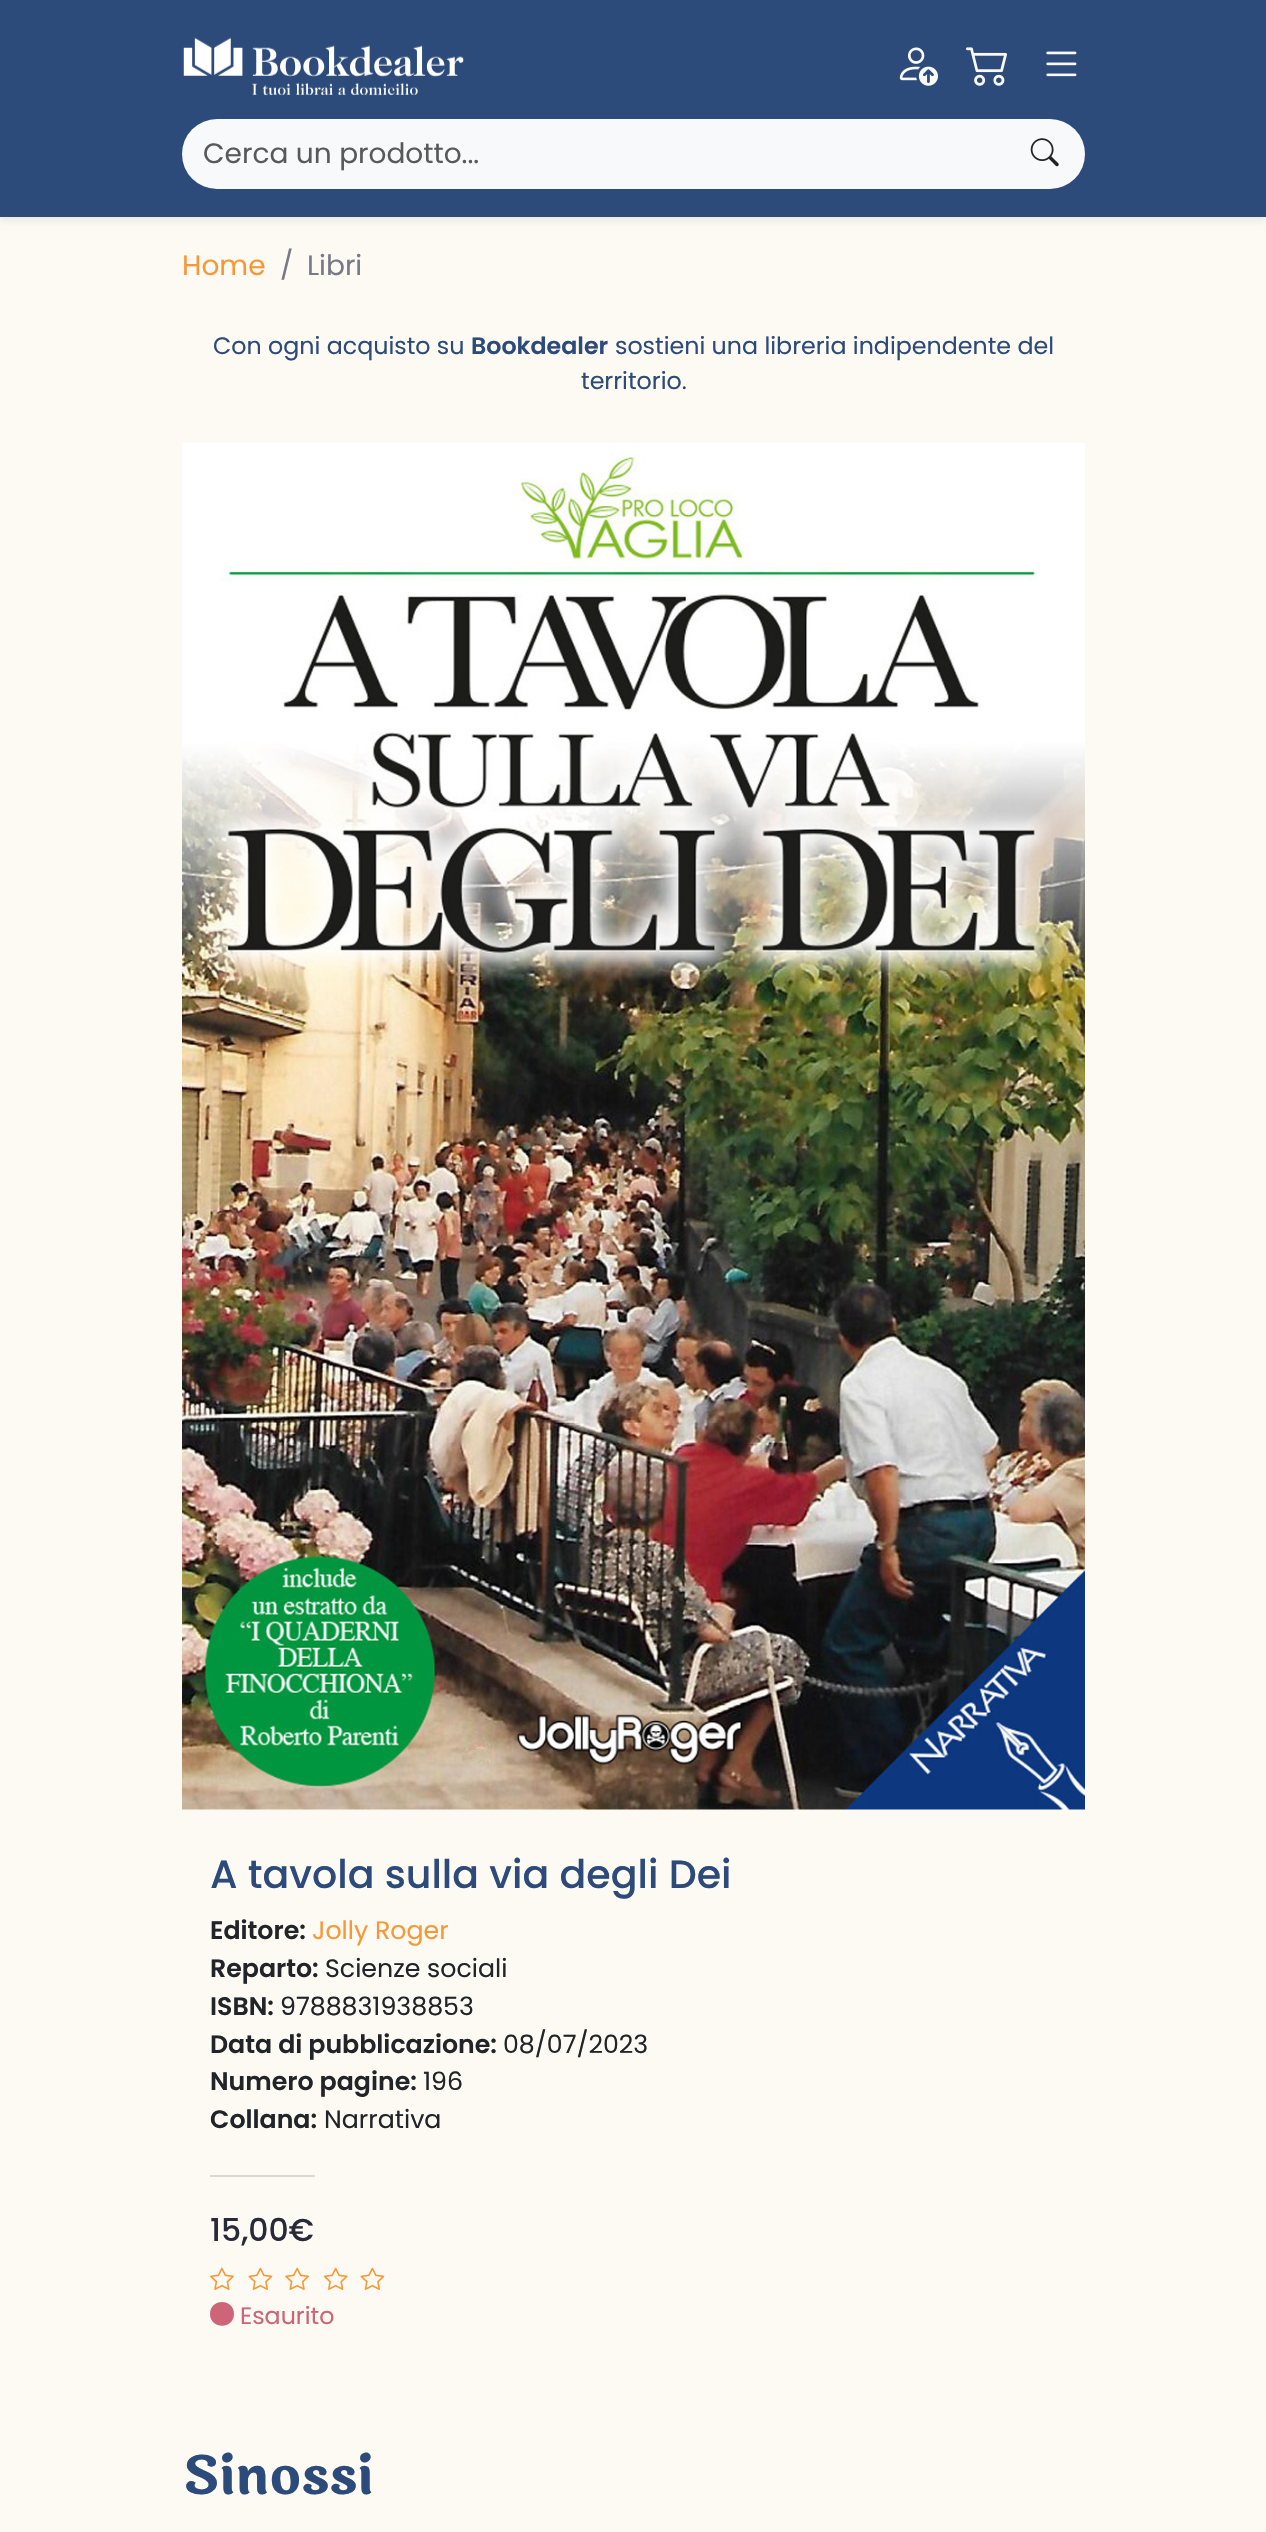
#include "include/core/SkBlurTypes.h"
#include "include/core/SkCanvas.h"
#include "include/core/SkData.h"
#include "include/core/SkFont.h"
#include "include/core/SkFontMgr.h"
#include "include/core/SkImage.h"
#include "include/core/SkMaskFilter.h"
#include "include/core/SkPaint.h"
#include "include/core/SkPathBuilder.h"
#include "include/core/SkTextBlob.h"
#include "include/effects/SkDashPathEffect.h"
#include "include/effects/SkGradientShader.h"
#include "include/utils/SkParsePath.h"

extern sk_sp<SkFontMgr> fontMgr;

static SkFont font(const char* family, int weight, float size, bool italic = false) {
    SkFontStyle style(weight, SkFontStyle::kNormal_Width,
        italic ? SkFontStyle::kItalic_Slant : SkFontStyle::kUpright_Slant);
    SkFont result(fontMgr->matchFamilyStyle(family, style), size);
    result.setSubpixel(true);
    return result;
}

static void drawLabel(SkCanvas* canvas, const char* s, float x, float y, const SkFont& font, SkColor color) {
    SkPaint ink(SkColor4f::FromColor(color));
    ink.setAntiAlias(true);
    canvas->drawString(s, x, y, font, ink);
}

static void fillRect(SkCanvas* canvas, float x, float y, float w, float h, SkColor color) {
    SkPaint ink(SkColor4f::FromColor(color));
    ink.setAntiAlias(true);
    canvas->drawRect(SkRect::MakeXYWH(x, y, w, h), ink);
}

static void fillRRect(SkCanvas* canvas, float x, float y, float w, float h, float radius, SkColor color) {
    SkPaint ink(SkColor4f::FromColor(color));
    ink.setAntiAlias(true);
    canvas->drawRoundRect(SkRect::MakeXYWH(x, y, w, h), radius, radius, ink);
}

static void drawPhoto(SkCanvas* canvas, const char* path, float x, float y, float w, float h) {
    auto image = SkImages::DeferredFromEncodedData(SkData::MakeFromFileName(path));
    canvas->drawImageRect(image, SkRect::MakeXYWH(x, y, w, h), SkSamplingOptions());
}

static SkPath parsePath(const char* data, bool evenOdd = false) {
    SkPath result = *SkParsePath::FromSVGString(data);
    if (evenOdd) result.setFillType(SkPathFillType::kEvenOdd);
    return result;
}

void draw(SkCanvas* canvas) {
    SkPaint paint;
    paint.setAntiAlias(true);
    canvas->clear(0xFFFCFAF2);
    paint.setColor(0x12000000);
    paint.setMaskFilter(SkMaskFilter::MakeBlur(kNormal_SkBlurStyle, 3.5f));
    canvas->drawRect(SkRect::MakeXYWH(0, 4, 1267, 217), paint);
    paint.setMaskFilter(nullptr);
    fillRect(canvas, 0, 0, 1266, 217, 0xFF2C4A7A);
    drawPhoto(canvas, "assets/img1.png", 183, 37, 281, 59);
    drawPhoto(canvas, "assets/img2.png", 899, 47, 39, 39);
    drawPhoto(canvas, "assets/img3.png", 966, 47, 41, 39);
    drawPhoto(canvas, "assets/img4.png", 1046, 51, 31, 26);
    fillRRect(canvas, 182, 119, 903, 70, 35, 0xFFF8F9FA);
    SkFont font1 = font("Poppins", 400, 28);
    drawLabel(canvas, "Cerca un prodotto...", 203, 163, font1, 0xFF575A5D);
    drawPhoto(canvas, "assets/img5.png", 1030, 138, 29, 29);
    drawLabel(canvas, "Home", 182, 275, font1, 0xFFF79838);
    drawLabel(canvas, "/", 280, 275, font1, 0xFF777A86);
    drawLabel(canvas, "Libri", 307, 275, font1, 0xFF777A86);
    SkFont font2 = font("Poppins", 400, 23.75f);
    drawLabel(canvas, "Con ogni acquisto su", 213, 354, font2, 0xFF2C4A7A);
    SkFont font3 = font("Poppins", 600, 23.75f);
    drawLabel(canvas, "Bookdealer", 471, 354, font3, 0xFF2C4A7A);
    drawLabel(canvas, "sostieni una libreria indipendente del", 615, 354, font2, 0xFF2C4A7A);
    drawLabel(canvas, "territorio.", 581, 389, font2, 0xFF2C4A7A);
    drawPhoto(canvas, "assets/img6.png", 182, 443, 903, 1367);
    SkFont font4 = font("Poppins", 500, 39.5f);
    drawLabel(canvas, "A tavola sulla via degli Dei", 210, 1888, font4, 0xFF2C4A7A);
    SkFont font5 = font("Poppins", 600, 25.25f);
    drawLabel(canvas, "Editore:", 210, 1939, font5, 0xFF212529);
    SkFont font6 = font("Poppins", 400, 25.25f);
    drawLabel(canvas, "Jolly Roger", 312, 1939, font6, 0xFFF79838);
    drawLabel(canvas, "Reparto:", 210, 1977, font5, 0xFF212529);
    drawLabel(canvas, "Scienze sociali", 325, 1977, font6, 0xFF212529);
    drawLabel(canvas, "ISBN:", 210, 2015, font5, 0xFF212529);
    drawLabel(canvas, "9788831938853", 280, 2015, font6, 0xFF212529);
    drawLabel(canvas, "Data di pubblicazione:", 210, 2053, font5, 0xFF212529);
    drawLabel(canvas, "08/07/2023", 503, 2053, font6, 0xFF212529);
    drawLabel(canvas, "Numero pagine:", 210, 2090, font5, 0xFF212529);
    drawLabel(canvas, "196", 423, 2090, font6, 0xFF212529);
    drawLabel(canvas, "Collana:", 210, 2128, font5, 0xFF212529);
    drawLabel(canvas, "Narrativa", 324, 2128, font6, 0xFF212529);
    fillRect(canvas, 210, 2175, 105, 2, 0xFFD8D9D5);
    SkFont font7 = font("Poppins", 500, 31.5f);
    drawLabel(canvas, "15,00€", 210, 2241, font7, 0xFF282A39);
    drawPhoto(canvas, "assets/img7.png", 210, 2267, 24, 23);
    drawPhoto(canvas, "assets/img8.png", 248, 2267, 25, 23);
    drawPhoto(canvas, "assets/img9.png", 285, 2267, 24, 23);
    drawPhoto(canvas, "assets/img10.png", 323, 2267, 25, 23);
    drawPhoto(canvas, "assets/img8.png", 360, 2267, 25, 23);
    paint.setColor(0xFFCE6477);
    canvas->drawPath(parsePath("M210 2314C210 2329.5 234 2329.5 234 2314C234 2298 210 2298 210 2314Z"), paint);
    drawLabel(canvas, "Esaurito", 240, 2324, font2, 0xFFCE6477);
    SkFont font8 = font("Laila", 700, 53);
    drawLabel(canvas, "Sinossi", 182, 2494, font8, 0xFF2C4A7A);
}
